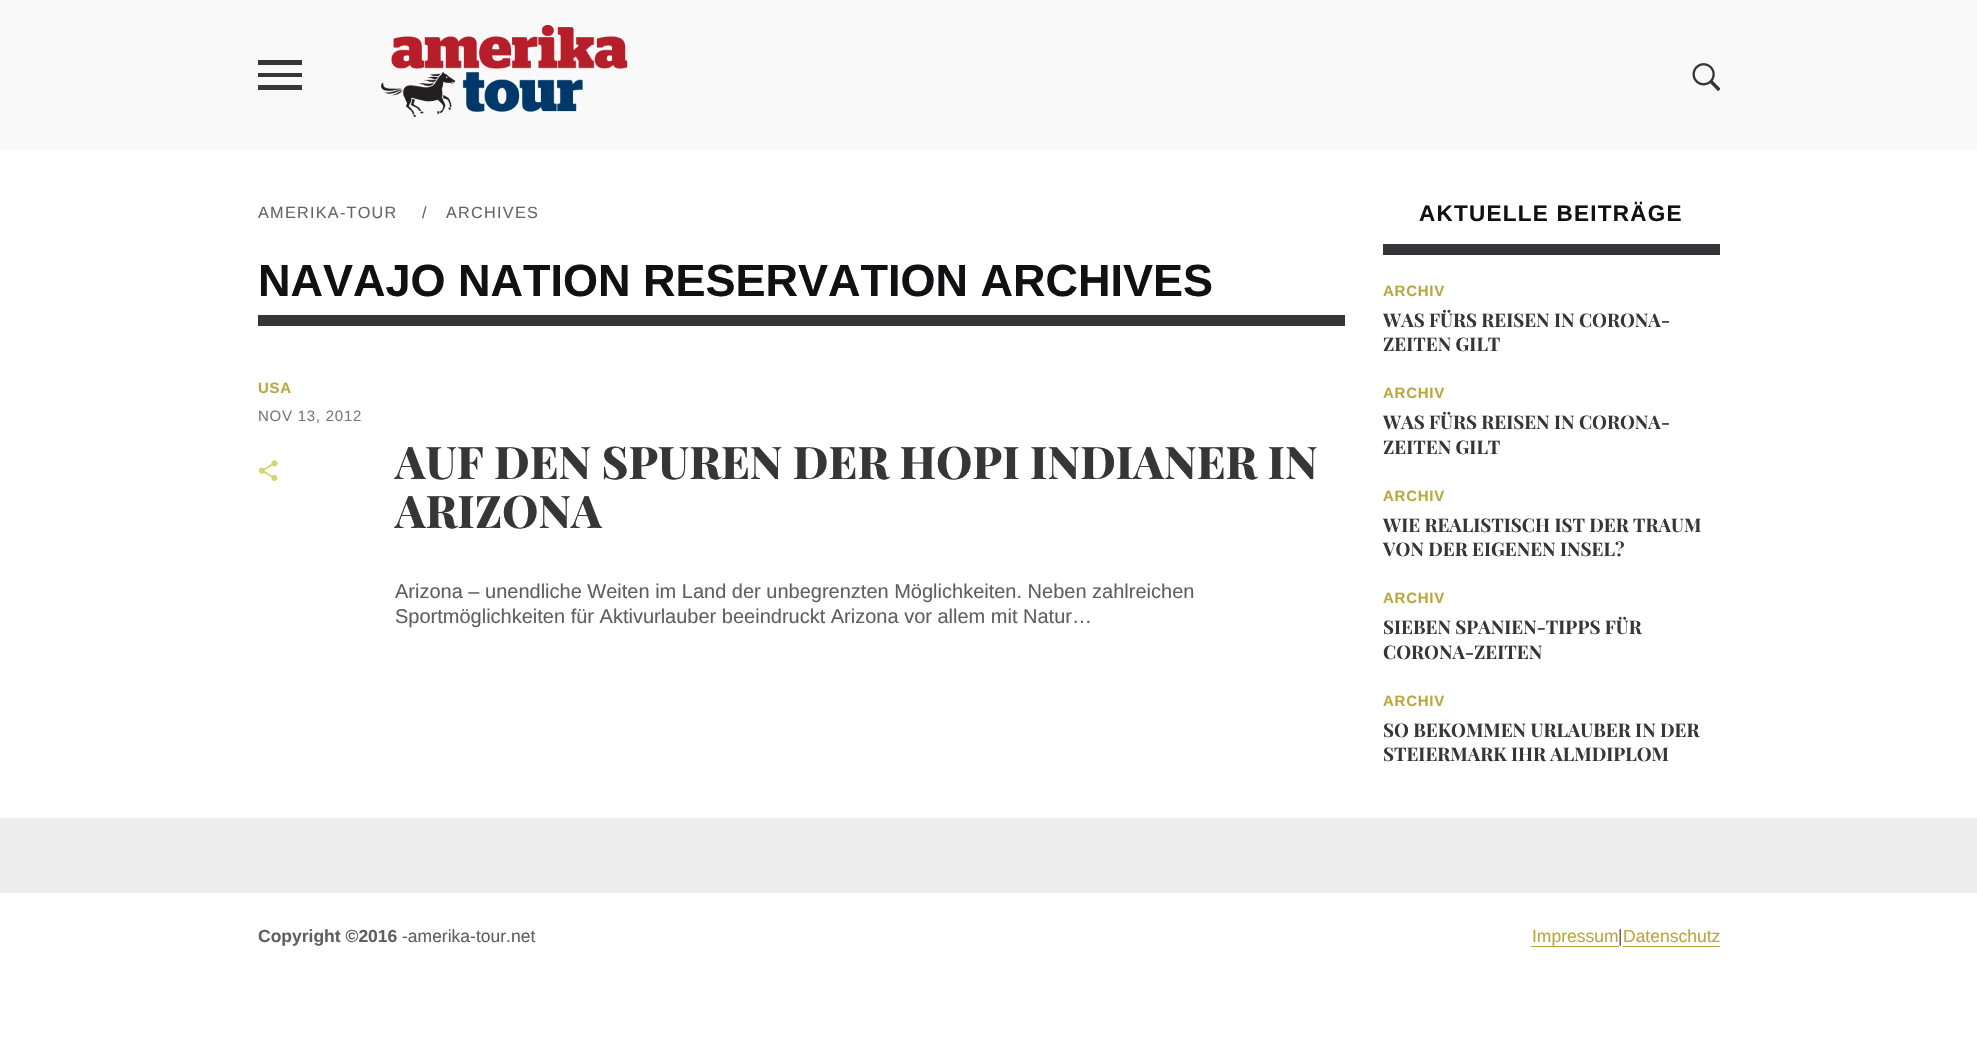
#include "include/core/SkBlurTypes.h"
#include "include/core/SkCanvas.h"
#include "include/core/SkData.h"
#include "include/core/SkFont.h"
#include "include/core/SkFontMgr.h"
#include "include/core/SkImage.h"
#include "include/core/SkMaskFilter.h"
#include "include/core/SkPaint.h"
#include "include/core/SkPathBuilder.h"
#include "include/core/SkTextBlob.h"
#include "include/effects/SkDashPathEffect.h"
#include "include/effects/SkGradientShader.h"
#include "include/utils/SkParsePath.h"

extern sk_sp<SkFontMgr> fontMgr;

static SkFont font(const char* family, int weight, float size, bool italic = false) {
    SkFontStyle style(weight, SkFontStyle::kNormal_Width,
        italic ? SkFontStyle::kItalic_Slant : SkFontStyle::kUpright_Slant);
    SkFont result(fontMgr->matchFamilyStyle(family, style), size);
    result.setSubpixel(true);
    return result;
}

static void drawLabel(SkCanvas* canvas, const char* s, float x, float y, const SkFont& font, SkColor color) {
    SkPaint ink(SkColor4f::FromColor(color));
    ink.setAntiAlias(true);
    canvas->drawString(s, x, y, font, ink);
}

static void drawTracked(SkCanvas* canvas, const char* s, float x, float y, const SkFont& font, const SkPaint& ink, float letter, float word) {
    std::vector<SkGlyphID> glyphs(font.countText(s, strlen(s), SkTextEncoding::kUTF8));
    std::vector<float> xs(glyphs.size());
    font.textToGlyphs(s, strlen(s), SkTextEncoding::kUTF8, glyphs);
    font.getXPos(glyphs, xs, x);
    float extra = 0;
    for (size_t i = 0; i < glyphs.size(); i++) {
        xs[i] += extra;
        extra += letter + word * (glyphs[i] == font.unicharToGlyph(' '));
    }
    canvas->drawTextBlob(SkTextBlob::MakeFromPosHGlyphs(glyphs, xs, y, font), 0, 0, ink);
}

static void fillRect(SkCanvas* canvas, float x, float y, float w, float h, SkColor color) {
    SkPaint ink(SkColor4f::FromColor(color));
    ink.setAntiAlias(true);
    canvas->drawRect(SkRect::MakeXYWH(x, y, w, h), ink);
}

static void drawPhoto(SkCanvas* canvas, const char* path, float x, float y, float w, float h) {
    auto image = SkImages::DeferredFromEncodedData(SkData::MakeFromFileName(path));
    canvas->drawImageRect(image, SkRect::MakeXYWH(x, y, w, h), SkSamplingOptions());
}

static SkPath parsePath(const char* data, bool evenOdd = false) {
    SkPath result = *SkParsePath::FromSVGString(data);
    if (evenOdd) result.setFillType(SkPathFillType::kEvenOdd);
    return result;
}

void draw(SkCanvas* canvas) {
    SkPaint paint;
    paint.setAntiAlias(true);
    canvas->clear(0xFFFFFFFF);
    fillRect(canvas, 0, 0, 1977, 150, 0xFFF9F9F9);
    paint.setColor(0xFF373538);
    canvas->drawPath(parsePath("M258 90V85H302V90ZM258 77V73H302V77ZM258 60H302V65H258Z"), paint);
    drawPhoto(canvas, "assets/img1.png", 381, 25, 247, 92);
    drawPhoto(canvas, "assets/img2.png", 1692, 63, 28, 29);
    SkFont font1 = font("Liberation Sans", 400, 16.25f);
    paint.setColor(0xFF656565);
    drawTracked(canvas, "AMERIKA-TOUR", 258, 218, font1, paint, 1.25f, 0);
    drawTracked(canvas, "/", 422, 218, font1, paint, 1.25f, 0);
    drawTracked(canvas, "ARCHIVES", 446, 218, font1, paint, 1.25f, 0);
    fillRect(canvas, 258, 315, 1087, 11, 0xFF363439);
    SkFont font2 = font("Liberation Sans", 700, 45);
    drawLabel(canvas, "NAVAJO NATION RESERVATION ARCHIVES", 258, 296, font2, 0xFF111113);
    SkFont font3 = font("Liberation Sans", 700, 15);
    paint.setColor(0xFFB7A841);
    drawTracked(canvas, "USA", 258, 393, font3, paint, 0.75f, 0);
    SkFont font4 = font("Liberation Sans", 400, 15);
    paint.setColor(0xFF777777);
    drawTracked(canvas, "NOV 13, 2012", 258, 421, font4, paint, 0.75f, 0);
    drawPhoto(canvas, "assets/img3.png", 258, 460, 20, 21);
    SkFont font5 = font("Playfair Display", 800, 45);
    drawLabel(canvas, "AUF DEN SPUREN DER HOPI INDIANER IN", 395, 479, font5, 0xFF373538);
    drawLabel(canvas, "ARIZONA", 395, 528, font5, 0xFF373538);
    SkFont font6 = font("Liberation Sans", 400, 20);
    drawLabel(canvas, "Arizona – unendliche Weiten im Land der unbegrenzten Möglichkeiten. Neben zahlreichen", 395, 598, font6, 0xFF5F5F5F);
    drawLabel(canvas, "Sportmöglichkeiten für Aktivurlauber beeindruckt Arizona vor allem mit Natur…", 395, 623, font6, 0xFF5F5F5F);
    fillRect(canvas, 1383, 244, 337, 11, 0xFF363439);
    SkFont font7 = font("Liberation Sans", 700, 22.5f);
    paint.setColor(0xFF111113);
    drawTracked(canvas, "AKTUELLE BEITRÄGE", 1419, 221, font7, paint, 1.25f, 0);
    paint.setColor(0xFFB7A841);
    drawTracked(canvas, "ARCHIV", 1383, 296, font3, paint, 0.75f, 0);
    SkFont font8 = font("Playfair Display", 700, 18.75f);
    drawLabel(canvas, "WAS FÜRS REISEN IN CORONA-", 1383, 327, font8, 0xFF373538);
    drawLabel(canvas, "ZEITEN GILT", 1383, 351, font8, 0xFF373538);
    drawTracked(canvas, "ARCHIV", 1383, 398, font3, paint, 0.75f, 0);
    drawLabel(canvas, "WAS FÜRS REISEN IN CORONA-", 1383, 429, font8, 0xFF373538);
    drawLabel(canvas, "ZEITEN GILT", 1383, 454, font8, 0xFF373538);
    drawTracked(canvas, "ARCHIV", 1383, 501, font3, paint, 0.75f, 0);
    drawLabel(canvas, "WIE REALISTISCH IST DER TRAUM", 1383, 532, font8, 0xFF373538);
    drawLabel(canvas, "VON DER EIGENEN INSEL?", 1383, 556, font8, 0xFF373538);
    drawTracked(canvas, "ARCHIV", 1383, 603, font3, paint, 0.75f, 0);
    drawLabel(canvas, "SIEBEN SPANIEN-TIPPS FÜR", 1383, 634, font8, 0xFF373538);
    drawLabel(canvas, "CORONA-ZEITEN", 1383, 659, font8, 0xFF373538);
    drawTracked(canvas, "ARCHIV", 1383, 706, font3, paint, 0.75f, 0);
    drawLabel(canvas, "SO BEKOMMEN URLAUBER IN DER", 1383, 737, font8, 0xFF373538);
    drawLabel(canvas, "STEIERMARK IHR ALMDIPLOM", 1383, 761, font8, 0xFF373538);
    fillRect(canvas, 0, 818, 1977, 75, 0xFFEDEDED);
    SkFont font9 = font("Liberation Sans", 700, 17.5f);
    drawLabel(canvas, "Copyright ©2016", 258, 942, font9, 0xFF5F5F5F);
    SkFont font10 = font("Liberation Sans", 400, 17.5f);
    drawLabel(canvas, "-amerika-tour.net", 402, 942, font10, 0xFF5F5F5F);
    drawLabel(canvas, "Impressum", 1532, 942, font10, 0xFFB7A841);
    fillRect(canvas, 1531, 946, 88, 1, 0xFFB7A841);
    drawLabel(canvas, "|", 1618, 942, font10, 0xFF5F5F5F);
    drawLabel(canvas, "Datenschutz", 1623, 942, font10, 0xFFB7A841);
    fillRect(canvas, 1623, 946, 97, 1, 0xFFB7A841);
}
